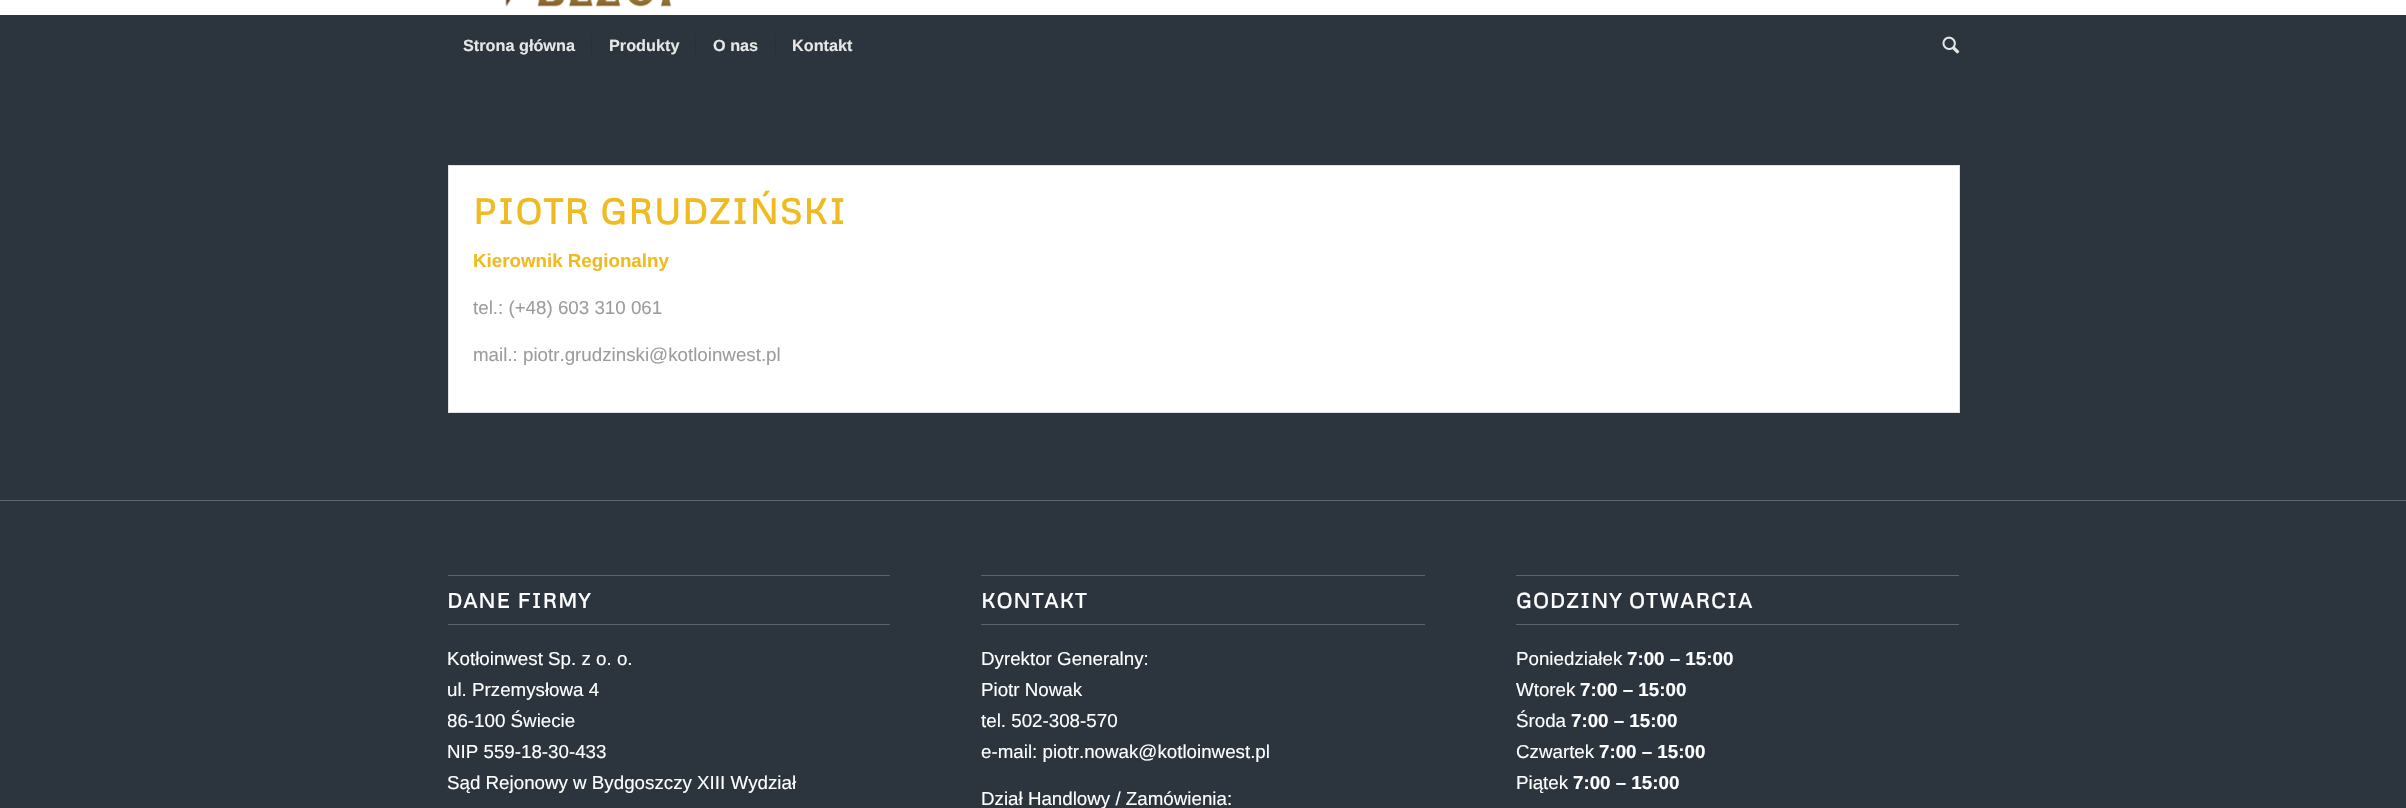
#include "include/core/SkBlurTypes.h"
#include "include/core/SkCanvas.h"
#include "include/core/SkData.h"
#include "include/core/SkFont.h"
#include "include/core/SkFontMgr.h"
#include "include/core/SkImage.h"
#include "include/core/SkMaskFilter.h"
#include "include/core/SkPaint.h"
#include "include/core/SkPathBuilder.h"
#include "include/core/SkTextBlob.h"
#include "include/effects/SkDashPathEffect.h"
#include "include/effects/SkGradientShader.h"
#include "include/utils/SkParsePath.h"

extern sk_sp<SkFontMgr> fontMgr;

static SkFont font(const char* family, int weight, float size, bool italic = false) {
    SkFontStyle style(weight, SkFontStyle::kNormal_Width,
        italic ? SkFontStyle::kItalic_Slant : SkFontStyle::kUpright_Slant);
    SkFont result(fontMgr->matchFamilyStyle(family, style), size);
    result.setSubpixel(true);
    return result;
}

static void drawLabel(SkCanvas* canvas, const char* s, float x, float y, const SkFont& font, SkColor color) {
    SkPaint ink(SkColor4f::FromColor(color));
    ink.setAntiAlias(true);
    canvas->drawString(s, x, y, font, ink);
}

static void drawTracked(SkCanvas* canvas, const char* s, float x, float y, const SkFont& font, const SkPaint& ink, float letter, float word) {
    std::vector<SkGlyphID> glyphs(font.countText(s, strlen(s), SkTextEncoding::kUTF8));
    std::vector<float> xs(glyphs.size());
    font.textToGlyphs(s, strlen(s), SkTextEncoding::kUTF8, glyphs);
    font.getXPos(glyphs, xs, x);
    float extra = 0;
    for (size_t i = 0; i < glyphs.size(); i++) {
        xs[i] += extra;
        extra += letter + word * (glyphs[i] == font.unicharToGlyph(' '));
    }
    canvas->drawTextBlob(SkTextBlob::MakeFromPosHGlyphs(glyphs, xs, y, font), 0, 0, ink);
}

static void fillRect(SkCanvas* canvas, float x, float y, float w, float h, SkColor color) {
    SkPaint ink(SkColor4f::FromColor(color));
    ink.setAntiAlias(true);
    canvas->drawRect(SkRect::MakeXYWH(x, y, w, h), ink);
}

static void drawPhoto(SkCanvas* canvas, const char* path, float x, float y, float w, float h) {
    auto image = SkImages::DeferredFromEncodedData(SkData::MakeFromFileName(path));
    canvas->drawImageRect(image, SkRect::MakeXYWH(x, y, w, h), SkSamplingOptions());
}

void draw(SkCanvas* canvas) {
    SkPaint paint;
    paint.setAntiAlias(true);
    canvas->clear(0xFF2C353D);
    fillRect(canvas, 0, 0, 2406, 15, 0xFFFFFFFF);
    drawPhoto(canvas, "assets/img1.png", 505, 0, 167, 7);
    SkFont font1 = font("Liberation Sans", 700, 16.25f);
    drawLabel(canvas, "Strona główna", 463, 51, font1, 0xFFE6E6E6);
    drawLabel(canvas, "Produkty", 609, 51, font1, 0xFFE6E6E6);
    fillRect(canvas, 591, 36, 1, 19, 0xFF2C3033);
    drawLabel(canvas, "O nas", 713, 51, font1, 0xFFE6E6E6);
    fillRect(canvas, 695, 36, 1, 19, 0xFF2C3033);
    drawLabel(canvas, "Kontakt", 792, 51, font1, 0xFFE6E6E6);
    fillRect(canvas, 775, 36, 1, 19, 0xFF2C3033);
    drawPhoto(canvas, "assets/img2.png", 1942, 36, 18, 18);
    paint.setColor(0xFFFFFFFF);
    canvas->drawRect(SkRect::MakeXYWH(448.5f, 165.5f, 1511, 247), paint);
    paint.setStroke(true);
    paint.setStrokeWidth(1);
    paint.setColor(0xFFE1E1E1);
    canvas->drawRect(SkRect::MakeXYWH(448.5f, 165.5f, 1511, 247), paint);
    SkFont font2 = font("Metrophobic", 700, 35);
    paint.setStroke(false);
    paint.setColor(0xFFEFBB20);
    drawTracked(canvas, "PIOTR GRUDZIŃSKI", 473, 224, font2, paint, 1.25f, 0);
    SkFont font3 = font("Liberation Sans", 700, 18.75f);
    drawLabel(canvas, "Kierownik Regionalny", 473, 267, font3, 0xFFEFBB20);
    SkFont font4 = font("Liberation Sans", 400, 18.75f);
    drawLabel(canvas, "tel.: (+48) 603 310 061", 473, 314, font4, 0xFF9C9C9C);
    drawLabel(canvas, "mail.: piotr.grudzinski@kotloinwest.pl", 473, 361, font4, 0xFF9C9C9C);
    fillRect(canvas, 0, 500, 2406, 1, 0xFF5B646B);
    fillRect(canvas, 448, 575, 442, 1, 0xFF5B646B);
    fillRect(canvas, 448, 624, 442, 1, 0xFF5B646B);
    SkFont font5 = font("Metrophobic", 700, 20.6f);
    paint.setColor(0xFFFFFFFF);
    drawTracked(canvas, "DANE FIRMY", 447, 608, font5, paint, 1.25f, 0);
    drawLabel(canvas, "Kotłoinwest Sp. z o. o.", 447, 665, font4, 0xFFFFFFFF);
    drawLabel(canvas, "ul. Przemysłowa 4", 447, 696, font4, 0xFFFFFFFF);
    canvas->save();
    canvas->clipRect(SkRect::MakeXYWH(448, 558, 442, 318));
    drawLabel(canvas, "86-100 Świecie", 447, 727, font4, 0xFFFFFFFF);
    canvas->restore();
    drawLabel(canvas, "NIP 559-18-30-433", 447, 758, font4, 0xFFFFFFFF);
    drawLabel(canvas, "Sąd Rejonowy w Bydgoszczy XIII Wydział", 447, 789, font4, 0xFFFFFFFF);
    fillRect(canvas, 981, 575, 444, 1, 0xFF5B646B);
    fillRect(canvas, 981, 624, 444, 1, 0xFF5B646B);
    drawTracked(canvas, "KONTAKT", 981, 608, font5, paint, 1.25f, 0);
    drawLabel(canvas, "Dyrektor Generalny:", 981, 665, font4, 0xFFFFFFFF);
    drawLabel(canvas, "Piotr Nowak", 981, 696, font4, 0xFFFFFFFF);
    drawLabel(canvas, "tel. 502-308-570", 981, 727, font4, 0xFFFFFFFF);
    drawLabel(canvas, "e-mail: piotr.nowak@kotloinwest.pl", 981, 758, font4, 0xFFFFFFFF);
    drawLabel(canvas, "Dział Handlowy / Zamówienia:", 981, 805, font4, 0xFFFFFFFF);
    fillRect(canvas, 1516, 575, 443, 1, 0xFF5B646B);
    fillRect(canvas, 1516, 624, 443, 1, 0xFF5B646B);
    drawTracked(canvas, "GODZINY OTWARCIA", 1516, 608, font5, paint, 1.25f, 0);
    drawLabel(canvas, "Poniedziałek", 1516, 665, font4, 0xFFFFFFFF);
    drawLabel(canvas, "7:00 – 15:00", 1627, 665, font3, 0xFFFFFFFF);
    drawLabel(canvas, "Wtorek", 1516, 696, font4, 0xFFFFFFFF);
    drawLabel(canvas, "7:00 – 15:00", 1580, 696, font3, 0xFFFFFFFF);
    drawLabel(canvas, "Środa", 1516, 727, font4, 0xFFFFFFFF);
    drawLabel(canvas, "7:00 – 15:00", 1571, 727, font3, 0xFFFFFFFF);
    drawLabel(canvas, "Czwartek", 1516, 758, font4, 0xFFFFFFFF);
    drawLabel(canvas, "7:00 – 15:00", 1599, 758, font3, 0xFFFFFFFF);
    drawLabel(canvas, "Piątek", 1516, 789, font4, 0xFFFFFFFF);
    drawLabel(canvas, "7:00 – 15:00", 1573, 789, font3, 0xFFFFFFFF);
}
